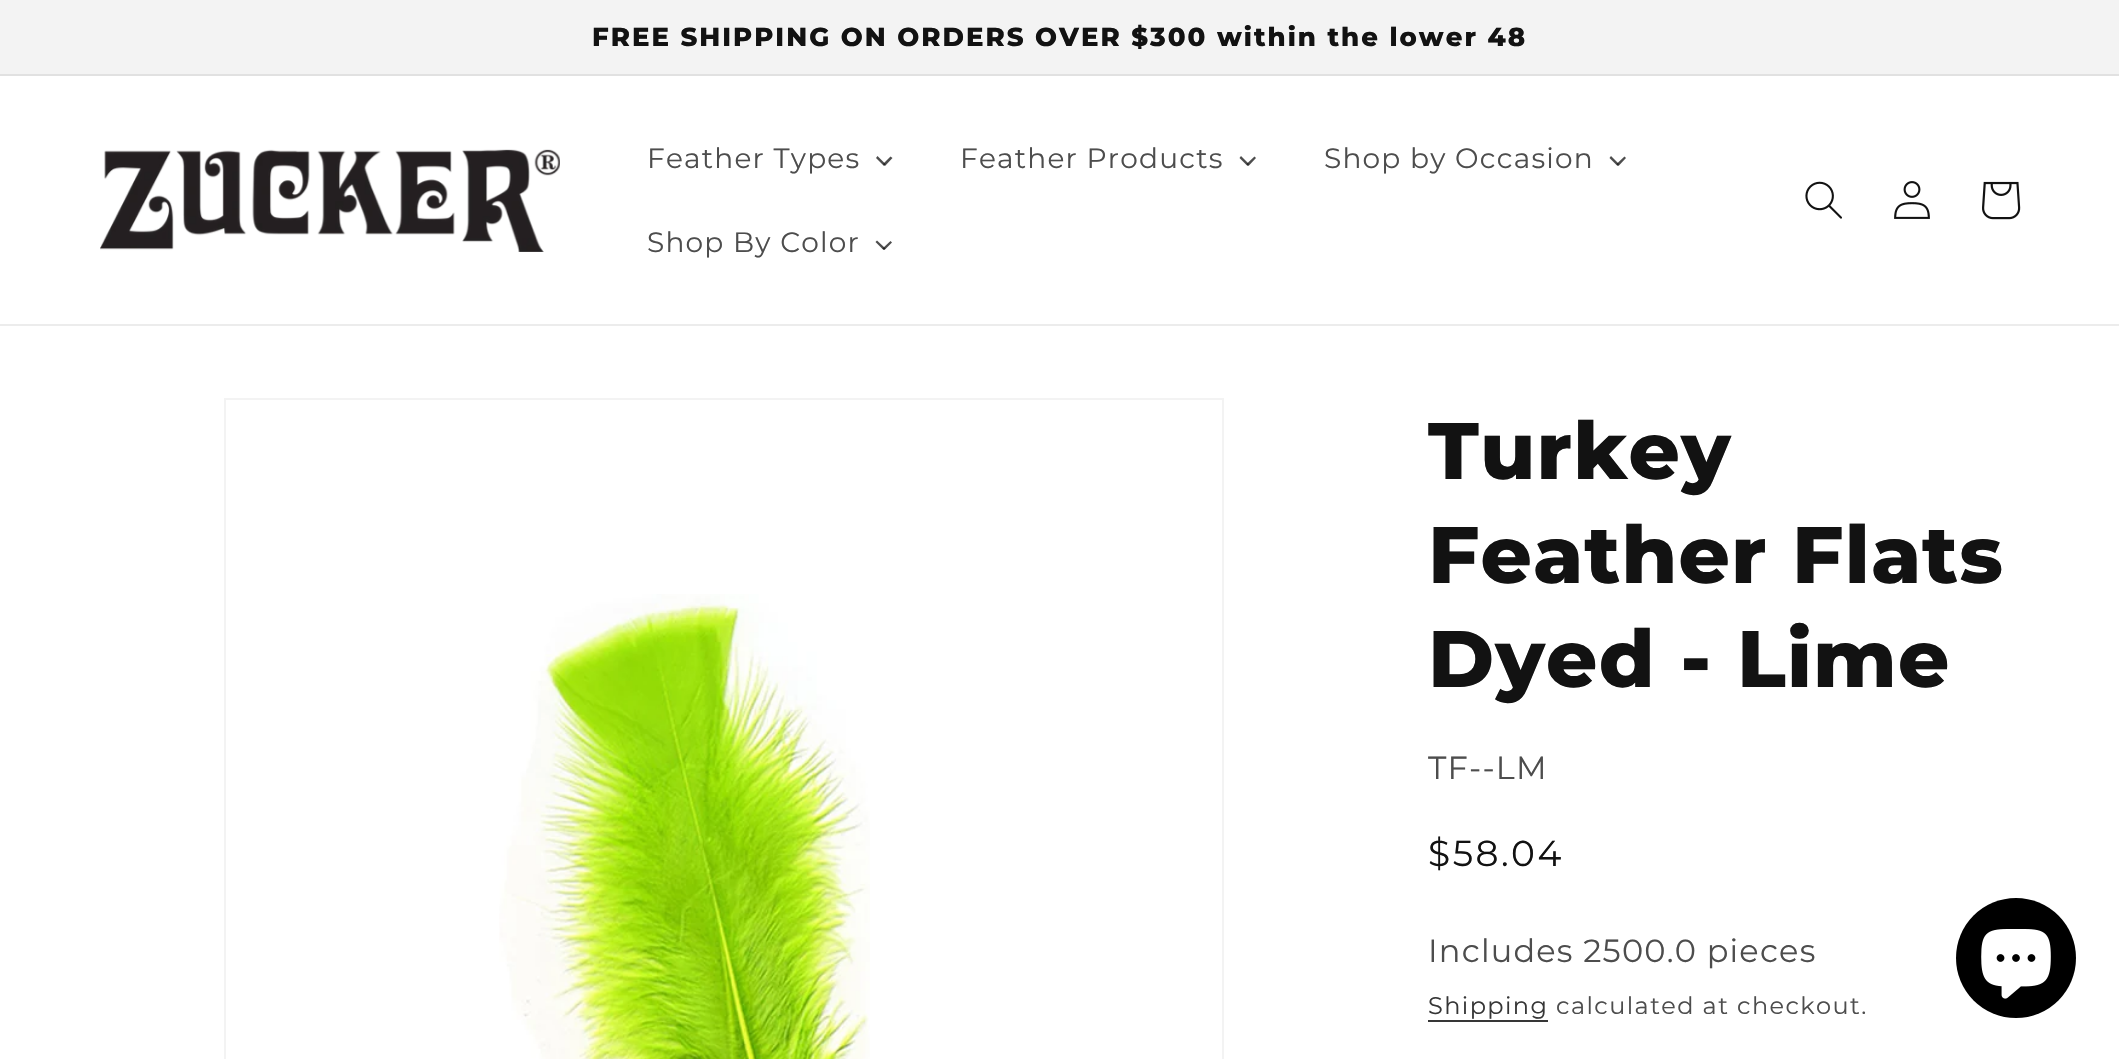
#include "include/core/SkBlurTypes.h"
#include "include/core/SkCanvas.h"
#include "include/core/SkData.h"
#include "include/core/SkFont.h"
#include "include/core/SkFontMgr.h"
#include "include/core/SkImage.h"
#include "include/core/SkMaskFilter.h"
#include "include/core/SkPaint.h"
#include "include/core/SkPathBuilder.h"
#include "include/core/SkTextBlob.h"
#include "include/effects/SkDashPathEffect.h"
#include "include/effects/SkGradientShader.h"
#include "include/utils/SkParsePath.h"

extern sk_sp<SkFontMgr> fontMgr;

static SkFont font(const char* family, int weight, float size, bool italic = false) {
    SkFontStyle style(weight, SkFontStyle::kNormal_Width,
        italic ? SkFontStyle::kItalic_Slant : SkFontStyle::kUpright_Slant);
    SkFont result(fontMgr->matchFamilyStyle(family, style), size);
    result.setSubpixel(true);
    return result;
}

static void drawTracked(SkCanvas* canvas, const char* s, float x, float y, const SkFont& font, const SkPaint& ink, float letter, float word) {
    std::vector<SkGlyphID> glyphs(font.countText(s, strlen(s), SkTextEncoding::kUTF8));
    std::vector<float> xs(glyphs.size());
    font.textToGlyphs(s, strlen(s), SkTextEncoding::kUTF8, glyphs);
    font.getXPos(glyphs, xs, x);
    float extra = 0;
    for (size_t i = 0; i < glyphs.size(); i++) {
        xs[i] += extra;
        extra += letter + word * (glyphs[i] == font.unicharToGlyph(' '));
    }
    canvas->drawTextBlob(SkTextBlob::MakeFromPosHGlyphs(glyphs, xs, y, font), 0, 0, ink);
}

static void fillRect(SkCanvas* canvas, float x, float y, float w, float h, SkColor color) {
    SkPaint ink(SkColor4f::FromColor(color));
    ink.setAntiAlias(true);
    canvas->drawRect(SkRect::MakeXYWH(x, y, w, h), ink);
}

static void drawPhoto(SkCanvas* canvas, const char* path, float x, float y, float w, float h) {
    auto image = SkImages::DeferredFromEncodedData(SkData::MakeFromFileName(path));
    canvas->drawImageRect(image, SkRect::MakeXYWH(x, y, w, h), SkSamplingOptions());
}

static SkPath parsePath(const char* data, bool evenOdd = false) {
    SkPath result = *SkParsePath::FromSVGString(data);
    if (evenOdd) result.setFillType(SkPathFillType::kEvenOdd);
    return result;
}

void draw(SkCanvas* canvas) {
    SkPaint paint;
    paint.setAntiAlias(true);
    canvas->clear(0xFFFFFFFF);
    fillRect(canvas, 0, 0, 2119, 74, 0xFFF3F3F3);
    fillRect(canvas, 0, 74, 2119, 2, 0xFFE1E1E1);
    SkFont font1 = font("Montserrat", 800, 26);
    paint.setColor(0xFF121212);
    drawTracked(canvas, "FREE SHIPPING ON ORDERS OVER $300 within the lower 48", 592, 46, font1, paint, 2, 0);
    fillRect(canvas, 0, 324, 2119, 2, 0xFFECECEC);
    drawPhoto(canvas, "assets/img1.png", 100, 149, 460, 103);
    SkFont font2 = font("Montserrat", 400, 28);
    paint.setColor(0xFF4D4D4D);
    drawTracked(canvas, "Feather Types", 647, 168, font2, paint, 1.2f, 0);
    canvas->drawPath(parsePath("M890.5 156.5L892.5 158L885 166L883 164Z"), paint);
    paint.setColor(0xBF121212);
    canvas->drawPath(parsePath("M877.5 156L885.5 164L884 166L876 158Z"), paint);
    paint.setColor(0xFF4D4D4D);
    drawTracked(canvas, "Feather Products", 960, 168, font2, paint, 1.2f, 0);
    canvas->drawPath(parsePath("M1254.5 156.5L1256 158L1248.5 166L1246.5 164Z"), paint);
    paint.setColor(0xBF121212);
    canvas->drawPath(parsePath("M1241 156L1249 164L1247.5 166L1239.5 158Z"), paint);
    paint.setColor(0xFF4D4D4D);
    drawTracked(canvas, "Shop by Occasion", 1324, 168, font2, paint, 1.2f, 0);
    canvas->drawPath(parsePath("M1624.5 156.5L1626 158L1618.5 166L1616.5 164Z"), paint);
    paint.setColor(0xBF121212);
    canvas->drawPath(parsePath("M1611 156L1619 164L1617.5 166L1609.5 158Z"), paint);
    paint.setColor(0xFF4D4D4D);
    drawTracked(canvas, "Shop By Color", 647, 252, font2, paint, 1.2f, 0);
    canvas->drawPath(parsePath("M890.5 241L892 242.5L884.5 250L882.5 248.5Z"), paint);
    paint.setColor(0xBF121212);
    canvas->drawPath(parsePath("M877 240.5L885.5 248.5L883.5 250L875.5 242Z"), paint);
    drawPhoto(canvas, "assets/img2.png", 1805, 181, 37, 38);
    drawPhoto(canvas, "assets/img3.png", 1894, 181, 36, 38);
    drawPhoto(canvas, "assets/img4.png", 1982, 181, 39, 39);
    paint.setStroke(true);
    paint.setStrokeWidth(2);
    paint.setColor(0xFFF3F3F3);
    canvas->drawRect(SkRect::MakeXYWH(225, 399, 998, 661), paint);
    drawPhoto(canvas, "assets/img5.png", 499, 594, 371, 465);
    SkFont font3 = font("Montserrat", 800, 80);
    paint.setStroke(false);
    paint.setColor(0xFF121212);
    drawTracked(canvas, "Turkey", 1428, 479, font3, paint, 1.2f, 0);
    drawTracked(canvas, "Feather Flats", 1428, 583, font3, paint, 1.2f, 0);
    drawTracked(canvas, "Dyed - Lime", 1428, 687, font3, paint, 1.2f, 0);
    SkFont font4 = font("Montserrat", 400, 32);
    paint.setColor(0xFF4D4D4D);
    drawTracked(canvas, "TF--LM", 1428, 779, font4, paint, 1.2f, 0);
    SkFont font5 = font("Montserrat", 400, 36);
    paint.setColor(0xFF121212);
    drawTracked(canvas, "$58.04", 1428, 866, font5, paint, 2.5f, 0);
    paint.setColor(0xFF4D4D4D);
    drawTracked(canvas, "Includes 2500.0 pieces", 1428, 962, font4, paint, 1.2f, 0);
    SkFont font6 = font("Montserrat", 400, 24);
    paint.setColor(0xFF363636);
    drawTracked(canvas, "Shipping", 1428, 1014, font6, paint, 1.4f, 0);
    fillRect(canvas, 1428, 1020, 120, 2, 0xFF363636);
    paint.setColor(0xFF4D4D4D);
    drawTracked(canvas, "calculated at checkout.", 1556, 1014, font6, paint, 1.4f, 0);
    paint.setColor(0xFF000000);
    canvas->drawCircle(2016, 958, 60, paint);
    drawPhoto(canvas, "assets/img6.png", 1981, 929, 70, 70);
}
